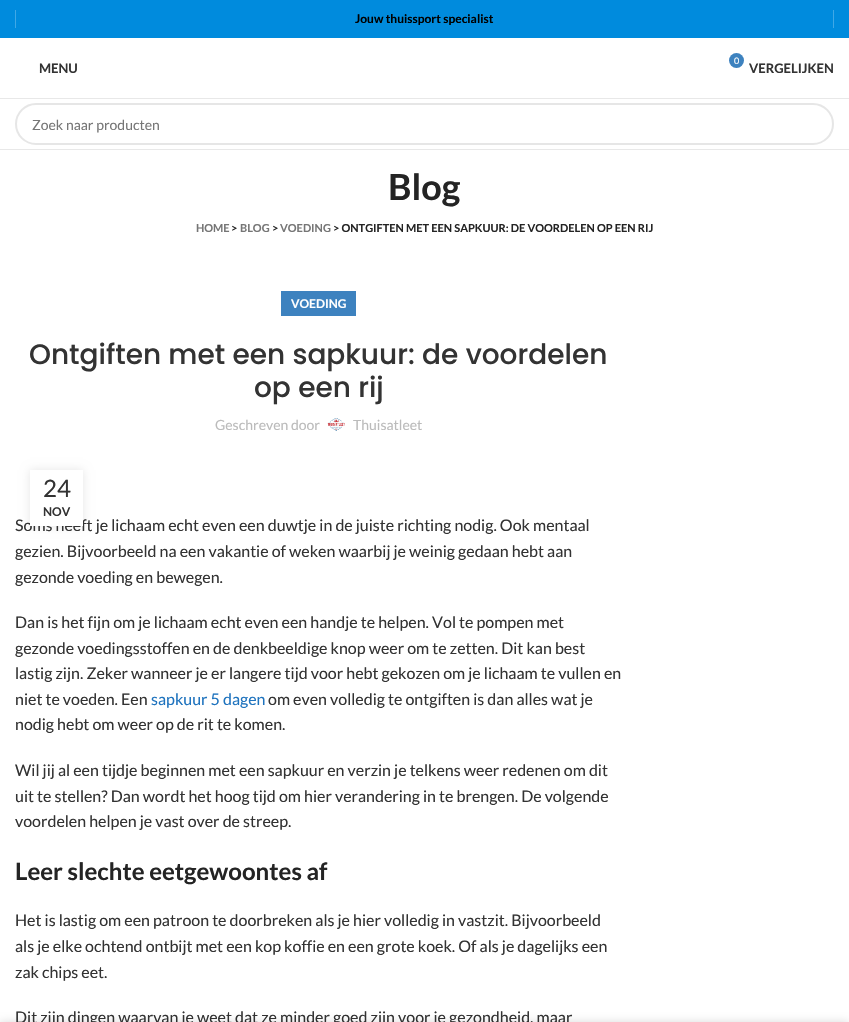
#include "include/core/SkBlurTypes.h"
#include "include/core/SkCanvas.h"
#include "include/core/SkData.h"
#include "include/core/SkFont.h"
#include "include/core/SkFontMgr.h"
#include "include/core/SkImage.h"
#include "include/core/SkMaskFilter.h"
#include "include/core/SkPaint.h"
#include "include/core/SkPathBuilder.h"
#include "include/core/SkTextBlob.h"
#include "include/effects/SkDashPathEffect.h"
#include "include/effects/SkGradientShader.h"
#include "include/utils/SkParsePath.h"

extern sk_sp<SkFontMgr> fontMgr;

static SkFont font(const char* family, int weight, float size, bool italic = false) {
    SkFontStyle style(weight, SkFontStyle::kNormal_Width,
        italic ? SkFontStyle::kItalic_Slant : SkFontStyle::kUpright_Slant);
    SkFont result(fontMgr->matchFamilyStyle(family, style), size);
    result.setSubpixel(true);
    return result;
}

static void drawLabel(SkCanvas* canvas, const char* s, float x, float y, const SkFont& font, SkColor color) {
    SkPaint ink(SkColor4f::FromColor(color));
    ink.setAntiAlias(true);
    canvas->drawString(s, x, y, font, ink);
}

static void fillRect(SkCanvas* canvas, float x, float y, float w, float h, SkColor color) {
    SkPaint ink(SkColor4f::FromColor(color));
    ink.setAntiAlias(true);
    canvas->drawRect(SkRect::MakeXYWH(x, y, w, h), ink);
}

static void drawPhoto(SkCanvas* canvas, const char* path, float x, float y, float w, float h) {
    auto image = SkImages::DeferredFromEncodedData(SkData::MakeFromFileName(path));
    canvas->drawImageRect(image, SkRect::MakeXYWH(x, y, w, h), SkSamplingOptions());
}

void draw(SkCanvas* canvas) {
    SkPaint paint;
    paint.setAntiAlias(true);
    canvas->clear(0xFFFFFFFF);
    fillRect(canvas, 0, 0, 849, 38, 0xFF008BDD);
    fillRect(canvas, 15, 10, 1, 18, 0xFF40A8E6);
    SkFont font1 = font("Lato", 700, 12);
    drawLabel(canvas, "Jouw thuissport specialist", 355, 23, font1, 0xFF000000);
    fillRect(canvas, 833, 10, 1, 18, 0xFF40A8E6);
    fillRect(canvas, 0, 98, 849, 1, 0xFFE8E8E8);
    SkFont font2 = font("Lato", 700, 13);
    drawLabel(canvas, "MENU", 39, 73, font2, 0xFF333333);
    paint.setColor(0xFF3D82BF);
    canvas->drawCircle(736.5f, 60.5f, 7.5f, paint);
    SkFont font3 = font("Lato", 400, 9);
    drawLabel(canvas, "0", 734, 64, font3, 0xFFFFFFFF);
    drawLabel(canvas, "VERGELIJKEN", 749, 73, font2, 0xFF333333);
    fillRect(canvas, 0, 149, 849, 1, 0xFFE8E8E8);
    paint.setStroke(true);
    paint.setStrokeWidth(2);
    paint.setColor(0xFFE6E6E6);
    canvas->drawRoundRect(SkRect::MakeXYWH(16, 104, 817, 40), 20, 20, paint);
    SkFont font4 = font("Lato", 400, 14);
    drawLabel(canvas, "Zoek naar producten", 32, 130, font4, 0xFF767676);
    SkFont font5 = font("Lato", 700, 36);
    drawLabel(canvas, "Blog", 388, 200, font5, 0xFF242424);
    SkFont font6 = font("Lato", 700, 11);
    drawLabel(canvas, "HOME", 196, 232, font6, 0xFF767676);
    drawLabel(canvas, ">", 231, 232, font6, 0xFF242424);
    drawLabel(canvas, "BLOG", 240, 232, font6, 0xFF767676);
    drawLabel(canvas, ">", 272, 232, font6, 0xFF242424);
    drawLabel(canvas, "VOEDING", 280, 232, font6, 0xFF767676);
    drawLabel(canvas, "> ONTGIFTEN MET EEN SAPKUUR: DE VOORDELEN OP EEN RIJ", 333, 232, font6, 0xFF242424);
    fillRect(canvas, 281, 291, 75, 25, 0xFF3D82BF);
    drawLabel(canvas, "VOEDING", 291, 308, font1, 0xFFFFFFFF);
    SkFont font7 = font("Poppins", 500, 28);
    drawLabel(canvas, "Ontgiften met een sapkuur: de voordelen", 29, 364, font7, 0xFF333333);
    drawLabel(canvas, "op een rij", 254, 397, font7, 0xFF333333);
    drawLabel(canvas, "Geschreven door", 215, 430, font4, 0xFFBBBBBB);
    drawPhoto(canvas, "assets/img1.png", 327, 418, 18, 13);
    drawLabel(canvas, "Thuisatleet", 353, 430, font4, 0xFFBBBBBB);
    paint.setStroke(false);
    paint.setColor(0x1A000000);
    paint.setMaskFilter(SkMaskFilter::MakeBlur(kNormal_SkBlurStyle, 4.5f));
    canvas->drawRect(SkRect::MakeXYWH(30, 470, 53, 56), paint);
    paint.setMaskFilter(nullptr);
    SkFont font8 = font("Lato", 400, 16);
    drawLabel(canvas, "Soms heeft je lichaam echt even een duwtje in de juiste richting nodig. Ook mentaal", 15, 531, font8, 0xFF333333);
    fillRect(canvas, 30, 470, 53, 56, 0xFFFFFFFF);
    SkFont font9 = font("Lato", 400, 24);
    drawLabel(canvas, "24", 43, 497, font9, 0xFF333333);
    drawLabel(canvas, "NOV", 43, 516, font1, 0xFF333333);
    drawLabel(canvas, "gezien. Bijvoorbeeld na een vakantie of weken waarbij je weinig gedaan hebt aan", 15, 557, font8, 0xFF333333);
    drawLabel(canvas, "gezonde voeding en bewegen.", 15, 583, font8, 0xFF333333);
    drawLabel(canvas, "Dan is het fijn om je lichaam echt even een handje te helpen. Vol te pompen met", 15, 628, font8, 0xFF333333);
    drawLabel(canvas, "gezonde voedingsstoffen en de denkbeeldige knop weer om te zetten. Dit kan best", 15, 654, font8, 0xFF333333);
    drawLabel(canvas, "lastig zijn. Zeker wanneer je er langere tijd voor hebt gekozen om je lichaam te vullen en", 15, 679, font8, 0xFF333333);
    drawLabel(canvas, "niet te voeden. Een", 15, 705, font8, 0xFF333333);
    drawLabel(canvas, "sapkuur 5 dagen", 151, 705, font8, 0xFF1E73BE);
    drawLabel(canvas, "om even volledig te ontgiften is dan alles wat je", 268, 705, font8, 0xFF333333);
    drawLabel(canvas, "nodig hebt om weer op de rit te komen.", 15, 730, font8, 0xFF333333);
    drawLabel(canvas, "Wil jij al een tijdje beginnen met een sapkuur en verzin je telkens weer redenen om dit", 15, 776, font8, 0xFF333333);
    drawLabel(canvas, "uit te stellen? Dan wordt het hoog tijd om hier verandering in te brengen. De volgende", 15, 802, font8, 0xFF333333);
    drawLabel(canvas, "voordelen helpen je vast over de streep.", 15, 827, font8, 0xFF333333);
    SkFont font10 = font("Lato", 700, 24);
    drawLabel(canvas, "Leer slechte eetgewoontes af", 15, 880, font10, 0xFF242424);
    drawLabel(canvas, "Het is lastig om een patroon te doorbreken als je hier volledig in vastzit. Bijvoorbeeld", 15, 926, font8, 0xFF333333);
    drawLabel(canvas, "als je elke ochtend ontbijt met een kop koffie en een grote koek. Of als je dagelijks een", 15, 952, font8, 0xFF333333);
    drawLabel(canvas, "zak chips eet.", 15, 978, font8, 0xFF333333);
    drawLabel(canvas, "Dit zijn dingen waarvan je weet dat ze minder goed zijn voor je gezondheid, maar", 15, 1023, font8, 0xFF333333);
    paint.setColor(0x24000000);
    paint.setMaskFilter(SkMaskFilter::MakeBlur(kNormal_SkBlurStyle, 4.5f));
    canvas->drawRect(SkRect::MakeXYWH(0, 1022, 849, 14), paint);
    paint.setMaskFilter(nullptr);
}
